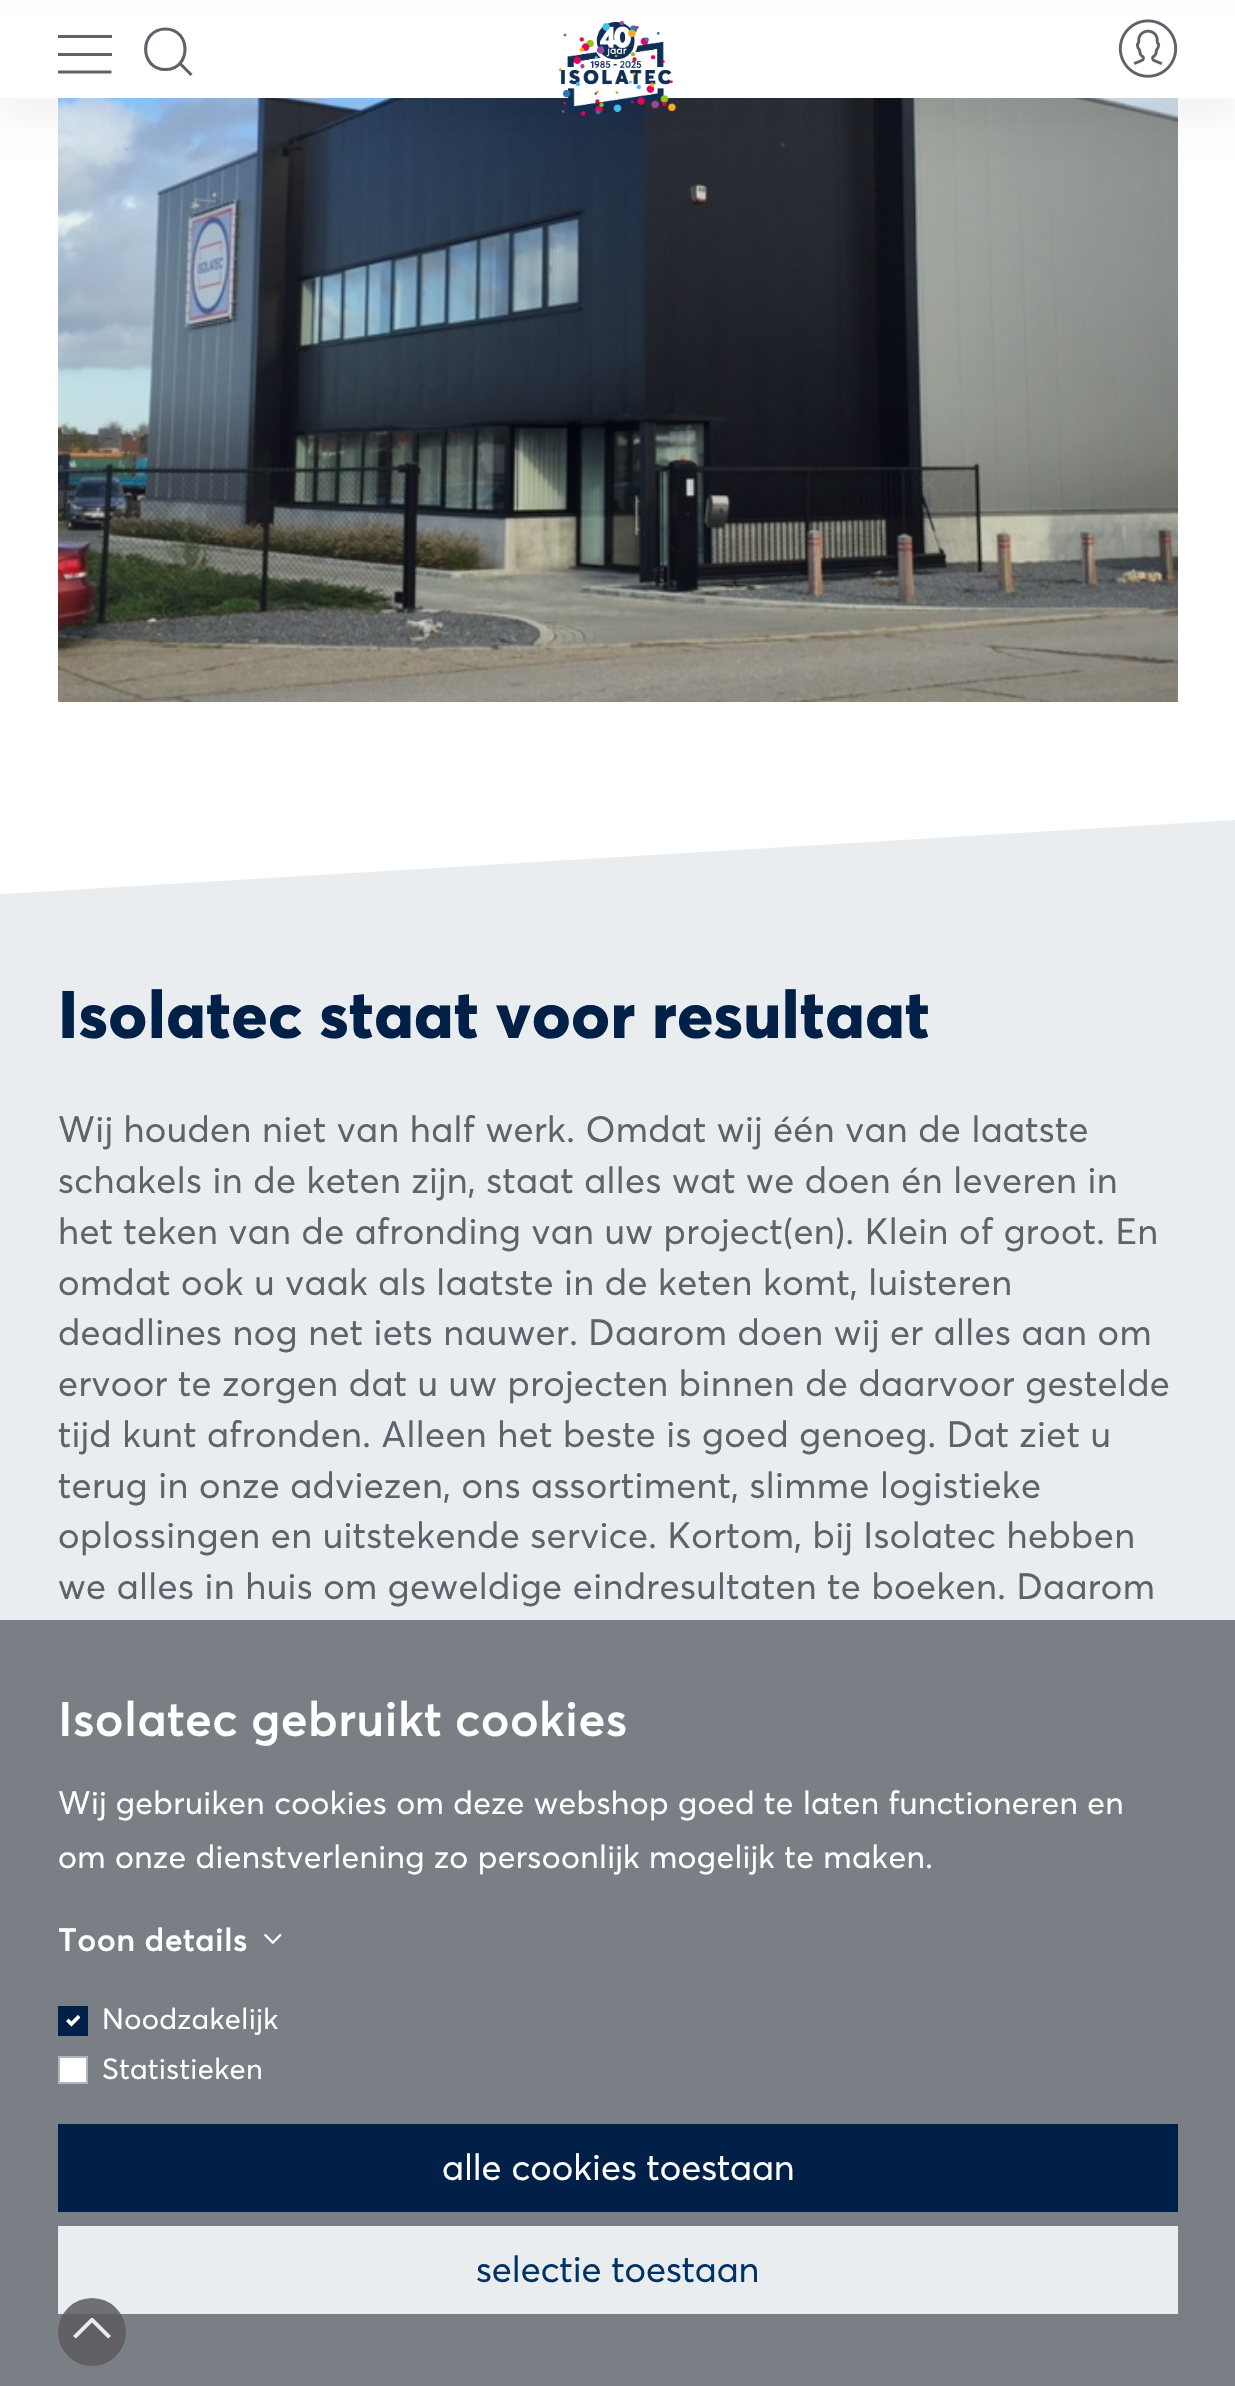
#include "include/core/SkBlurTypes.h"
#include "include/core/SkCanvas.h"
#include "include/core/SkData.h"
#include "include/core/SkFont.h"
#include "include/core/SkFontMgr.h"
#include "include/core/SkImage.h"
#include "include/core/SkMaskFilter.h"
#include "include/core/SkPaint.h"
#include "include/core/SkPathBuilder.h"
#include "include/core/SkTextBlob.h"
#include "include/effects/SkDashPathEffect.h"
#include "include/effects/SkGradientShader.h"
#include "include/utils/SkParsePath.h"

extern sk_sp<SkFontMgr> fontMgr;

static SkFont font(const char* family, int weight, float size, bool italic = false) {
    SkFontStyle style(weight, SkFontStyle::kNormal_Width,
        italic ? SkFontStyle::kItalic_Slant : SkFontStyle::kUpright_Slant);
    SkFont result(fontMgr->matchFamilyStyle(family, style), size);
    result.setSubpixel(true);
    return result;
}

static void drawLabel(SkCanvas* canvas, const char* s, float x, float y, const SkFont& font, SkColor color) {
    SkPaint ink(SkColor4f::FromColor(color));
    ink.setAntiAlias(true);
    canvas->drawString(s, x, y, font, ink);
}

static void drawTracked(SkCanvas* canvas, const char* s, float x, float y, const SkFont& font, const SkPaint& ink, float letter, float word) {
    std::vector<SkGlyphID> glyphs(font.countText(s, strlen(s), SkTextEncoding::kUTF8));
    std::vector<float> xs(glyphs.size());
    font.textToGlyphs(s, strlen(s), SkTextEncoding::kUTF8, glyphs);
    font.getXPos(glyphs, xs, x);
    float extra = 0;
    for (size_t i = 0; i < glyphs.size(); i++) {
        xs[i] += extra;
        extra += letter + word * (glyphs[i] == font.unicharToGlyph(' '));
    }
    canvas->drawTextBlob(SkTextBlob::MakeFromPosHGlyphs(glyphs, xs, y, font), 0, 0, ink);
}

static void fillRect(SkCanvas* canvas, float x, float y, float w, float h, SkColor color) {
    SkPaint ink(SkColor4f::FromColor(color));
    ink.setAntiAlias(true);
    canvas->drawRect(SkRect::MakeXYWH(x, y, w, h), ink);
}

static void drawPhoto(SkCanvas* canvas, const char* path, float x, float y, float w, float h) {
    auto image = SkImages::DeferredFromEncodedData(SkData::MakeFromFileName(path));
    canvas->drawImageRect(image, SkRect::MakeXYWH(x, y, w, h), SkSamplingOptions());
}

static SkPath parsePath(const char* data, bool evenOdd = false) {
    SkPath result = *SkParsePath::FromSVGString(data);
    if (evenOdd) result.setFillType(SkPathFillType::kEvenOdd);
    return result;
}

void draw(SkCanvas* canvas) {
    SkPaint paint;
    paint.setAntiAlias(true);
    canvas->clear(0xFFFFFFFF);
    drawPhoto(canvas, "assets/img3.png", 58, 98, 1120, 604);
    paint.setColor(0x0A000000);
    paint.setMaskFilter(SkMaskFilter::MakeBlur(kNormal_SkBlurStyle, 12));
    canvas->drawRect(SkRect::MakeXYWH(0, 24, 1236, 98), paint);
    paint.setMaskFilter(nullptr);
    fillRect(canvas, 0, 16, 1235, 82, 0xFFFFFFFF);
    fillRect(canvas, 58, 35, 54, 3, 0xFF5C636A);
    fillRect(canvas, 58, 53, 54, 3, 0xFF5C636A);
    paint.setStroke(true);
    paint.setStrokeWidth(3);
    paint.setColor(0xFF5C636A);
    canvas->drawPath(parsePath("M58 72H111.5"), paint);
    paint.setStrokeWidth(3.1f);
    paint.setStrokeJoin(SkPaint::kRound_Join);
    canvas->drawPath(parsePath("M165.5 69.5C191.5 69.5 191.5 29 165.5 29C139 29 139 69.5 165.5 69.5ZM179.5 63L191.5 75"), paint);
    drawPhoto(canvas, "assets/img1.png", 558, 20, 118, 98);
    drawPhoto(canvas, "assets/img2.png", 1118, 19, 60, 59);
    fillRect(canvas, 0, 894, 1235, 726, 0xFFEAEDEF);
    paint.setStroke(false);
    paint.setColor(0xFFEAEDEF);
    canvas->drawPath(parsePath("M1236 894V820L4 894Z"), paint);
    SkFont font1 = font("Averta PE", 800, 66.25f);
    paint.setColor(0xFF002048);
    drawTracked(canvas, "Isolatec staat voor resultaat", 58, 1038, font1, paint, 0.4f, 0);
    SkFont font2 = font("Averta PE", 400, 36.25f);
    paint.setColor(0xFF5C636A);
    drawTracked(canvas, "Wij houden niet van half werk. Omdat wij één van de laatste", 58, 1142, font2, paint, 0.4f, 0);
    drawTracked(canvas, "schakels in de keten zijn, staat alles wat we doen én leveren in", 58, 1193, font2, paint, 0.4f, 0);
    drawTracked(canvas, "het teken van de afronding van uw project(en). Klein of groot. En", 58, 1244, font2, paint, 0.4f, 0);
    drawTracked(canvas, "omdat ook u vaak als laatste in de keten komt, luisteren", 58, 1295, font2, paint, 0.4f, 0);
    drawTracked(canvas, "deadlines nog net iets nauwer. Daarom doen wij er alles aan om", 58, 1345, font2, paint, 0.4f, 0);
    drawTracked(canvas, "ervoor te zorgen dat u uw projecten binnen de daarvoor gestelde", 58, 1396, font2, paint, 0.4f, 0);
    drawTracked(canvas, "tijd kunt afronden. Alleen het beste is goed genoeg. Dat ziet u", 58, 1447, font2, paint, 0.4f, 0);
    drawTracked(canvas, "terug in onze adviezen, ons assortiment, slimme logistieke", 58, 1498, font2, paint, 0.4f, 0);
    drawTracked(canvas, "oplossingen en uitstekende service. Kortom, bij Isolatec hebben", 58, 1548, font2, paint, 0.4f, 0);
    drawTracked(canvas, "we alles in huis om geweldige eindresultaten te boeken. Daarom", 58, 1599, font2, paint, 0.4f, 0);
    fillRect(canvas, 0, 1620, 1235, 766, 0xFF7A7F85);
    SkFont font3 = font("Averta PE", 600, 47.9f);
    paint.setColor(0xFFFFFFFF);
    drawTracked(canvas, "Isolatec gebruikt cookies", 58, 1736, font3, paint, 0.4f, 0);
    SkFont font4 = font("Averta PE", 400, 31.9f);
    drawTracked(canvas, "Wij gebruiken cookies om deze webshop goed te laten functioneren en", 58, 1814, font4, paint, 0.4f, 0);
    drawTracked(canvas, "om onze dienstverlening zo persoonlijk mogelijk te maken.", 58, 1868, font4, paint, 0.4f, 0);
    SkFont font5 = font("Averta PE", 600, 31.9f);
    drawTracked(canvas, "Toon details", 58, 1951, font5, paint, 0.4f, 0);
    drawPhoto(canvas, "assets/img4.png", 264, 1933, 18, 11);
    fillRect(canvas, 58, 2006, 30, 30, 0xFF002048);
    SkFont font6 = font("Averta PE", 400, 29);
    drawTracked(canvas, "Noodzakelijk", 102, 2029, font6, paint, 0.4f, 0);
    drawPhoto(canvas, "assets/img5.png", 66, 2015, 14, 12);
    canvas->drawRect(SkRect::MakeXYWH(59, 2057, 28, 26), paint);
    paint.setStroke(true);
    paint.setStrokeWidth(2);
    paint.setStrokeJoin(SkPaint::kMiter_Join);
    paint.setColor(0xFFADB5BD);
    canvas->drawRect(SkRect::MakeXYWH(59, 2057, 28, 26), paint);
    paint.setStroke(false);
    paint.setColor(0xFFFFFFFF);
    drawTracked(canvas, "Statistieken", 102, 2079, font6, paint, 0.4f, 0);
    fillRect(canvas, 58, 2124, 1120, 88, 0xFF002048);
    drawLabel(canvas, "alle cookies toestaan", 442, 2180, font2, 0xFFFFFFFF);
    fillRect(canvas, 58, 2226, 1120, 88, 0xFFEAEDEF);
    drawLabel(canvas, "selectie toestaan", 476, 2282, font2, 0xFF003264);
    paint.setColor(0xD95A595D);
    canvas->drawCircle(92, 2332, 34, paint);
    paint.setColor(0xFFEBECED);
    canvas->drawPath(parsePath("M92 2322.5L108 2338.5L111 2336L93.5 2318.5C92.5 2317.5 91.5 2317.5 90.5 2318.5L73 2336L76 2338.5Z"), paint);
}
